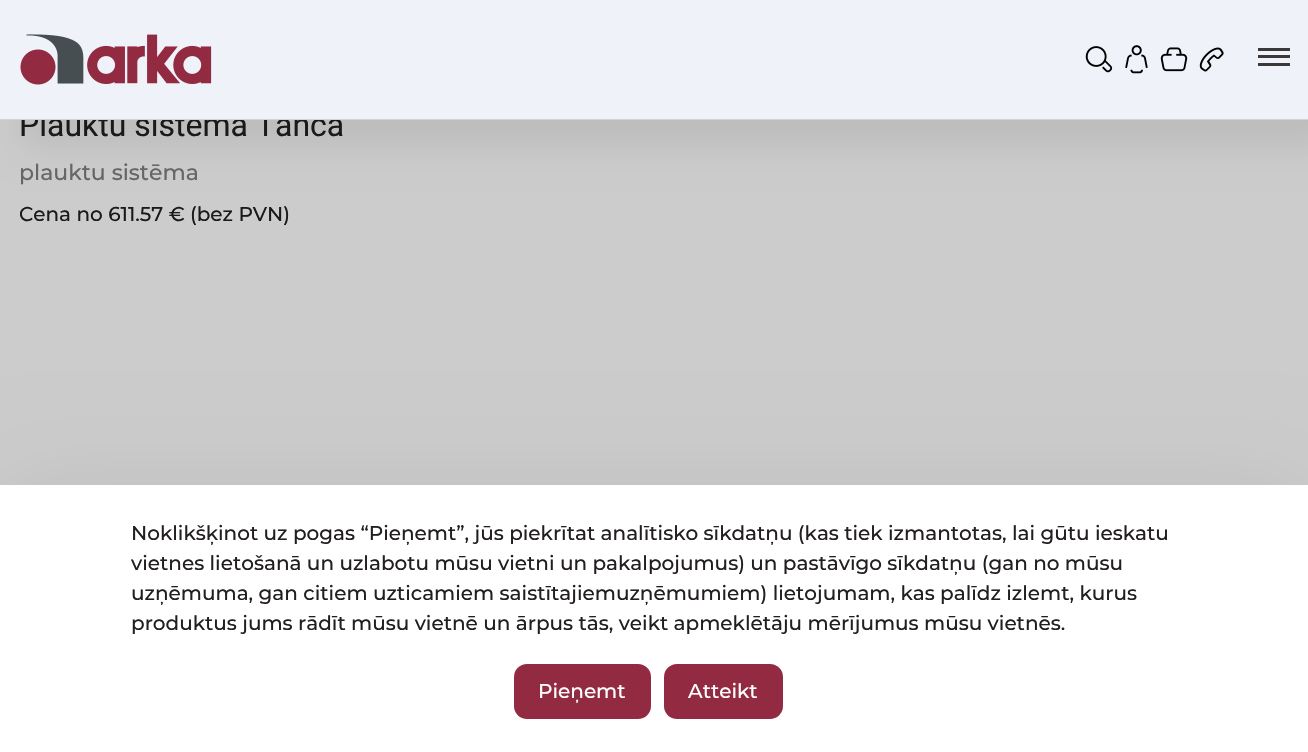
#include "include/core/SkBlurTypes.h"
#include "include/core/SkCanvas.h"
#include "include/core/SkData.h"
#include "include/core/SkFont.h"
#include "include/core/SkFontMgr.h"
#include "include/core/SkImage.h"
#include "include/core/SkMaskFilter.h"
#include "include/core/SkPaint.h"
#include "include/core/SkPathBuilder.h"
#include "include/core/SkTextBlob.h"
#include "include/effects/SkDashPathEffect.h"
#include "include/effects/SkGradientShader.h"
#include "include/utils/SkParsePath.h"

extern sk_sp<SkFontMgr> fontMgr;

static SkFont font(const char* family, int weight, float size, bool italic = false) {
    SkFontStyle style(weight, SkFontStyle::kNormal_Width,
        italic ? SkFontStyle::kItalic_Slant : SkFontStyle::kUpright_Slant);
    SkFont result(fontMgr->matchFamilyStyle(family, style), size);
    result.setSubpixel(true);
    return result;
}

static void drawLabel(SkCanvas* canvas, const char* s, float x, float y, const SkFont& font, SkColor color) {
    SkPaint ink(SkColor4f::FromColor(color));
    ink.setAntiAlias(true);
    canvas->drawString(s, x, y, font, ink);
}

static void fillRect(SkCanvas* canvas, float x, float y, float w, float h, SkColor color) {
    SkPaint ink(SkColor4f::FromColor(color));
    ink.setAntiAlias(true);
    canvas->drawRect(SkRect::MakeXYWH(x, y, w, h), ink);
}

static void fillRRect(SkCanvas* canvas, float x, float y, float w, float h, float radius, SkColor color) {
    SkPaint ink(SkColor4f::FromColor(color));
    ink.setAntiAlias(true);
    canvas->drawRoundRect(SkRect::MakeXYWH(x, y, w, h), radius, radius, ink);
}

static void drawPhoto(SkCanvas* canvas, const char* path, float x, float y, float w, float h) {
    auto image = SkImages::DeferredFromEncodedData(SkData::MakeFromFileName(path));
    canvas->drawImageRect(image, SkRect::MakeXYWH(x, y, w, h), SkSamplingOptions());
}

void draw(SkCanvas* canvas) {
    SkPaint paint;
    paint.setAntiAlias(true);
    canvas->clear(0xFFCCCCCC);
    paint.setColor(0x12000000);
    paint.setMaskFilter(SkMaskFilter::MakeBlur(kNormal_SkBlurStyle, 15));
    canvas->drawRect(SkRect::MakeXYWH(21, 28, 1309, 120), paint);
    paint.setMaskFilter(nullptr);
    SkFont font1 = font("Roboto", 400, 32);
    drawLabel(canvas, "Plauktu sistēma Tanca", 19, 136, font1, 0xFF1C191A);
    fillRect(canvas, 0, 0, 1308, 119, 0xFFEFF2F8);
    fillRect(canvas, 0, 119, 1308, 1, 0xFFD3D3D3);
    drawPhoto(canvas, "assets/img1.png", 20, 34, 192, 51);
    drawPhoto(canvas, "assets/img2.png", 1085, 46, 28, 27);
    drawPhoto(canvas, "assets/img3.png", 1125, 45, 23, 29);
    drawPhoto(canvas, "assets/img4.png", 1160, 47, 28, 25);
    drawPhoto(canvas, "assets/img5.png", 1199, 47, 25, 25);
    fillRect(canvas, 1258, 48, 32, 3, 0xFF3B3839);
    fillRect(canvas, 1258, 55, 32, 3, 0xFF3B3839);
    fillRect(canvas, 1258, 63, 32, 3, 0xFF3B3839);
    SkFont font2 = font("Montserrat", 500, 22);
    drawLabel(canvas, "plauktu sistēma", 19, 180, font2, 0xFF666666);
    SkFont font3 = font("Montserrat", 500, 20);
    drawLabel(canvas, "Cena no 611.57 € (bez PVN)", 19, 221, font3, 0xFF1C191A);
    paint.setMaskFilter(SkMaskFilter::MakeBlur(kNormal_SkBlurStyle, 50));
    canvas->drawRect(SkRect::MakeXYWH(0, 491, 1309, 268), paint);
    paint.setMaskFilter(nullptr);
    fillRect(canvas, 0, 485, 1308, 267, 0xFFFFFFFF);
    drawLabel(canvas, "Noklikšķinot uz pogas “Pieņemt”, jūs piekrītat analītisko sīkdatņu (kas tiek izmantotas, lai gūtu ieskatu", 131, 540, font3, 0xFF231F20);
    drawLabel(canvas, "vietnes lietošanā un uzlabotu mūsu vietni un pakalpojumus) un pastāvīgo sīkdatņu (gan no mūsu", 131, 570, font3, 0xFF231F20);
    drawLabel(canvas, "uzņēmuma, gan citiem uzticamiem saistītajiemuzņēmumiem) lietojumam, kas palīdz izlemt, kurus", 131, 600, font3, 0xFF231F20);
    drawLabel(canvas, "produktus jums rādīt mūsu vietnē un ārpus tās, veikt apmeklētāju mērījumus mūsu vietnēs.", 131, 630, font3, 0xFF231F20);
    fillRRect(canvas, 514, 664, 137, 55, 13, 0xFF922A42);
    drawLabel(canvas, "Pieņemt", 538, 698, font3, 0xFFFFFFFF);
    fillRRect(canvas, 664, 664, 119, 55, 13, 0xFF922A42);
    drawLabel(canvas, "Atteikt", 688, 698, font3, 0xFFFFFFFF);
}
